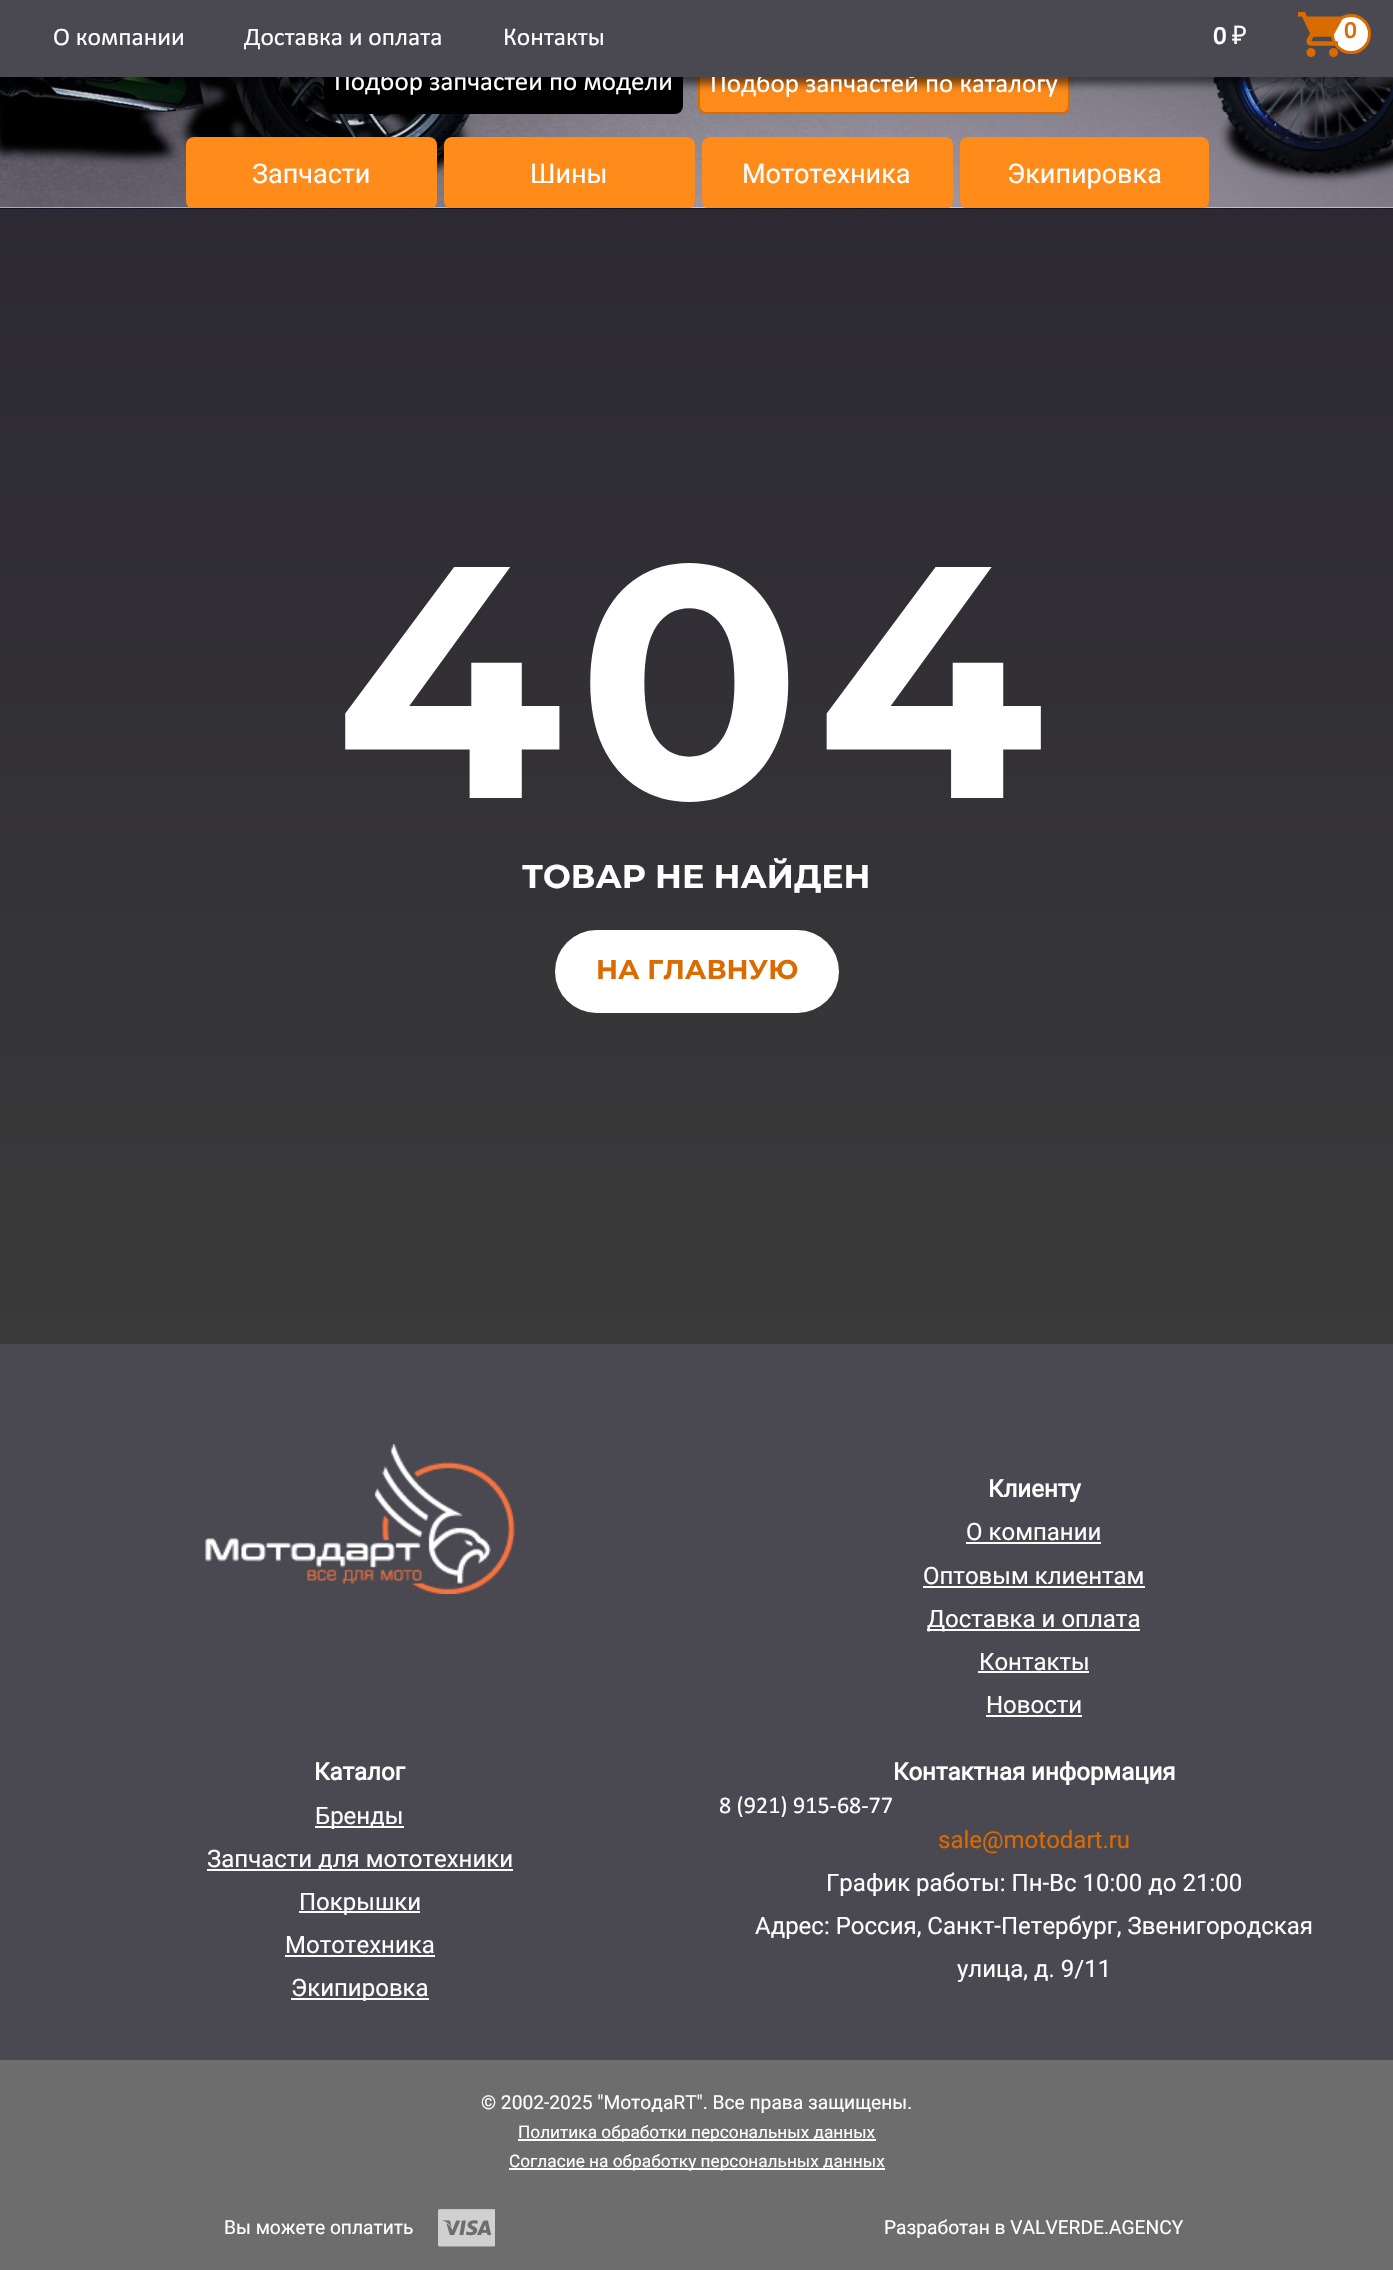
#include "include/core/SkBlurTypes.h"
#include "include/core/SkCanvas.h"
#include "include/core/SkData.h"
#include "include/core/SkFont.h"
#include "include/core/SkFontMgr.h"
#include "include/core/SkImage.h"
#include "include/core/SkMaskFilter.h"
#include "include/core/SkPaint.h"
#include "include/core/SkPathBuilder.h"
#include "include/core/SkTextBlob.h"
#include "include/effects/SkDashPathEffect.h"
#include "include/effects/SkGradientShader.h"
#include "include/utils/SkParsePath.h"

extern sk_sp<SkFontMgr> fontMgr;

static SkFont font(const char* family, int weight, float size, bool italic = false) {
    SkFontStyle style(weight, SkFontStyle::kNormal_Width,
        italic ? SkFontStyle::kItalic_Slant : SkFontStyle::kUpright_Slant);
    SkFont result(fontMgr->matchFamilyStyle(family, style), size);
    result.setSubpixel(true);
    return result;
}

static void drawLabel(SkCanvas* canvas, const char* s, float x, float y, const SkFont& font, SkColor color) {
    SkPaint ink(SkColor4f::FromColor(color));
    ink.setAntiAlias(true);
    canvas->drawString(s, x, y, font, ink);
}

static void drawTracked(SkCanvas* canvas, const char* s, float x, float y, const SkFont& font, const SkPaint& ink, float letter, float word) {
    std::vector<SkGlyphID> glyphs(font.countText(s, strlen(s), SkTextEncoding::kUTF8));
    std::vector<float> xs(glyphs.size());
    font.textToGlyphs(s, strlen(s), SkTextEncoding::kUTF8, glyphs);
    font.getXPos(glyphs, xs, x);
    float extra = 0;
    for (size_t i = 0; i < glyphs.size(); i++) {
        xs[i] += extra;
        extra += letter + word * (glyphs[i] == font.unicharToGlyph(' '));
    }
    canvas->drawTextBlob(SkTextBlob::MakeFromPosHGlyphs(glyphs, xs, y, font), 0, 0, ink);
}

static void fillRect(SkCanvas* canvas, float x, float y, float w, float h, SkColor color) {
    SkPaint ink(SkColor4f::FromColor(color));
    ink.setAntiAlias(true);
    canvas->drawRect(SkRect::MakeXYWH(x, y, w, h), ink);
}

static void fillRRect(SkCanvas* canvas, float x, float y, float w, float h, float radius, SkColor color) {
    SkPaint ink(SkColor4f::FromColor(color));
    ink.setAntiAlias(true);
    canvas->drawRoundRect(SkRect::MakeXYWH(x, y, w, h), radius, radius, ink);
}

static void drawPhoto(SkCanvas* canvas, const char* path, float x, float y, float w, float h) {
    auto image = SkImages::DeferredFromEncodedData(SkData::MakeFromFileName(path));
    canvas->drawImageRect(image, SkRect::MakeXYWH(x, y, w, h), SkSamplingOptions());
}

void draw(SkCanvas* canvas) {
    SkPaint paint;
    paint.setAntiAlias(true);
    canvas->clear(0xFF4A4952);
    drawPhoto(canvas, "assets/img1.png", 0, 77, 1393, 131);
    fillRRect(canvas, 324, 56, 359, 58, 8, 0xFF000000);
    paint.setColor(0xFFFF8B1B);
    canvas->drawRoundRect(SkRect::MakeXYWH(699, 57, 370, 56), 7, 7, paint);
    paint.setStroke(true);
    paint.setStrokeWidth(2);
    paint.setColor(0xFFDA6B00);
    canvas->drawRoundRect(SkRect::MakeXYWH(699, 57, 370, 56), 7, 7, paint);
    paint.setStroke(false);
    paint.setColor(0x8C000000);
    paint.setMaskFilter(SkMaskFilter::MakeBlur(kNormal_SkBlurStyle, 4));
    canvas->drawRect(SkRect::MakeXYWH(0, 8, 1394, 76), paint);
    paint.setMaskFilter(nullptr);
    SkFont font1 = font("Calibri", 400, 27);
    drawLabel(canvas, "Подбор запчастей по модели", 334, 90, font1, 0xFFFFFFFF);
    drawLabel(canvas, "Подбор запчастей по каталогу", 710, 92, font1, 0xFFFFFFFF);
    fillRect(canvas, 0, 2, 1393, 75, 0xFF4A4952);
    SkFont font2 = font("Calibri", 400, 25.5f);
    drawLabel(canvas, "О компании", 53, 45, font2, 0xFFFFFFFF);
    drawLabel(canvas, "Доставка и оплата", 244, 45, font2, 0xFFFFFFFF);
    drawLabel(canvas, "Контакты", 503, 45, font2, 0xFFFFFFFF);
    SkFont font3 = font("Calibri", 700, 25.5f);
    drawLabel(canvas, "0", 1213, 44, font3, 0xFFFFFFFF);
    SkFont font4 = font("Noto Sans", 400, 25.5f);
    drawLabel(canvas, "₽", 1232, 44, font4, 0xFFFFFFFF);
    paint.setColor(0xFFFFFFFF);
    canvas->drawCircle(1351, 34, 18.5f, paint);
    paint.setStroke(true);
    paint.setStrokeWidth(3);
    paint.setColor(0xFFDA6B00);
    canvas->drawCircle(1351, 34, 18.5f, paint);
    drawPhoto(canvas, "assets/img2.png", 1298, 12, 45, 45);
    SkFont font5 = font("Calibri", 700, 24);
    drawLabel(canvas, "0", 1344, 38, font5, 0xFFDA6B00);
    fillRRect(canvas, 186, 137, 251, 72, 8, 0xFFFF8B1B);
    SkFont font6 = font("Roboto", 400, 27);
    drawLabel(canvas, "Запчасти", 252, 183, font6, 0xFFFFFFFF);
    fillRRect(canvas, 444, 137, 251, 72, 8, 0xFFFF8B1B);
    drawLabel(canvas, "Шины", 530, 183, font6, 0xFFFFFFFF);
    fillRRect(canvas, 702, 137, 251, 72, 8, 0xFFFF8B1B);
    drawLabel(canvas, "Мототехника", 742, 183, font6, 0xFFFFFFFF);
    fillRRect(canvas, 960, 137, 249, 72, 8, 0xFFFF8B1B);
    drawLabel(canvas, "Экипировка", 1007, 183, font6, 0xFFFFFFFF);
    drawPhoto(canvas, "assets/img3.png", 0, 208, 1393, 1);
    paint.setStroke(false);
    {
        const SkColor colors[] = {0xFF3A3A3A, 0xFF2C2932};
        const float stops[] = {0, 1};
        const SkPoint ends[] = {{697, 1344}, {697, 209}};
        paint.setShader(SkGradientShader::MakeLinear(ends, colors, stops, 2, SkTileMode::kClamp));
        paint.setAlpha(255);
    }
    canvas->drawRect(SkRect::MakeXYWH(0, 209, 1393, 1135), paint);
    SkFont font7 = font("Montserrat", 700, 330);
    paint.setShader(nullptr);
    paint.setColor(0xFFFFFFFF);
    drawTracked(canvas, "404", 335, 798, font7, paint, 15, 0);
    SkFont font8 = font("Montserrat", 700, 33);
    drawLabel(canvas, "ТОВАР НЕ НАЙДЕН", 522, 888, font8, 0xFFFFFFFF);
    fillRRect(canvas, 555, 930, 284, 83, 41.5f, 0xFFFFFFFF);
    SkFont font9 = font("Montserrat", 700, 27);
    drawLabel(canvas, "НА ГЛАВНУЮ", 596, 979, font9, 0xFFDA6B00);
    drawPhoto(canvas, "assets/img4.png", 205, 1444, 310, 150);
    SkFont font10 = font("Roboto", 700, 24);
    drawLabel(canvas, "Клиенту", 988, 1497, font10, 0xFFFFFFFF);
    SkFont font11 = font("Roboto", 400, 24);
    drawLabel(canvas, "О компании", 966, 1540, font11, 0xFFFFFFFF);
    fillRect(canvas, 966, 1542, 135, 2, 0xFFFFFFFF);
    drawLabel(canvas, "Оптовым клиентам", 923, 1584, font11, 0xFFFFFFFF);
    fillRect(canvas, 923, 1586, 222, 2, 0xFFFFFFFF);
    fillRect(canvas, 927, 1629, 213, 2, 0xFFFFFFFF);
    drawLabel(canvas, "Доставка и оплата", 927, 1627, font11, 0xFFFFFFFF);
    drawLabel(canvas, "Контакты", 979, 1670, font11, 0xFFFFFFFF);
    fillRect(canvas, 978, 1671, 111, 2, 0xFFFFFFFF);
    drawLabel(canvas, "Новости", 986, 1713, font11, 0xFFFFFFFF);
    fillRect(canvas, 986, 1715, 96, 2, 0xFFFFFFFF);
    drawLabel(canvas, "Каталог", 314, 1780, font10, 0xFFFFFFFF);
    fillRect(canvas, 315, 1826, 89, 2, 0xFFFFFFFF);
    drawLabel(canvas, "Бренды", 315, 1824, font11, 0xFFFFFFFF);
    fillRect(canvas, 207, 1869, 306, 2, 0xFFFFFFFF);
    drawLabel(canvas, "Запчасти для мототехники", 207, 1867, font11, 0xFFFFFFFF);
    fillRect(canvas, 299, 1911, 121, 2, 0xFFFFFFFF);
    drawLabel(canvas, "Покрышки", 299, 1910, font11, 0xFFFFFFFF);
    drawLabel(canvas, "Мототехника", 285, 1953, font11, 0xFFFFFFFF);
    fillRect(canvas, 285, 1955, 150, 2, 0xFFFFFFFF);
    fillRect(canvas, 291, 1998, 138, 2, 0xFFFFFFFF);
    drawLabel(canvas, "Экипировка", 291, 1996, font11, 0xFFFFFFFF);
    drawLabel(canvas, "Контактная информация", 893, 1780, font10, 0xFFFFFFFF);
    SkFont font12 = font("Calibri", 400, 24);
    drawLabel(canvas, "8 (921) 915-68-77", 719, 1813, font12, 0xFFFFFFFF);
    drawLabel(canvas, "sale@motodart.ru", 938, 1848, font11, 0xFFDA6B00);
    drawLabel(canvas, "График работы: Пн-Вс 10:00 до 21:00", 826, 1891, font11, 0xFFFFFFFF);
    drawLabel(canvas, "Адрес: Россия, Санкт-Петербург, Звенигородская", 755, 1934, font11, 0xFFFFFFFF);
    drawLabel(canvas, "улица, д. 9/11", 957, 1977, font11, 0xFFFFFFFF);
    fillRect(canvas, 0, 2060, 1393, 210, 0xFF6E6D6D);
    SkFont font13 = font("Roboto", 400, 19.2f);
    drawLabel(canvas, "© 2002-2025 \"МотодаRT\". Все права защищены.", 481, 2109, font13, 0xFFFFFFFF);
    fillRect(canvas, 518, 2139, 358, 2, 0xFFFFFFFF);
    SkFont font14 = font("Roboto", 400, 17.25f);
    drawLabel(canvas, "Политика обработки персональных данных", 518, 2138, font14, 0xFFFFFFFF);
    fillRect(canvas, 509, 2168, 376, 2, 0xFFFFFFFF);
    drawLabel(canvas, "Согласие на обработку персональных данных", 509, 2167, font14, 0xFFFFFFFF);
    drawLabel(canvas, "Вы можете оплатить", 224, 2234, font13, 0xFFFFFFFF);
    drawPhoto(canvas, "assets/img5.png", 438, 2209, 57, 38);
    drawLabel(canvas, "Разработан в VALVERDE.AGENCY", 884, 2234, font13, 0xFFFFFFFF);
}
